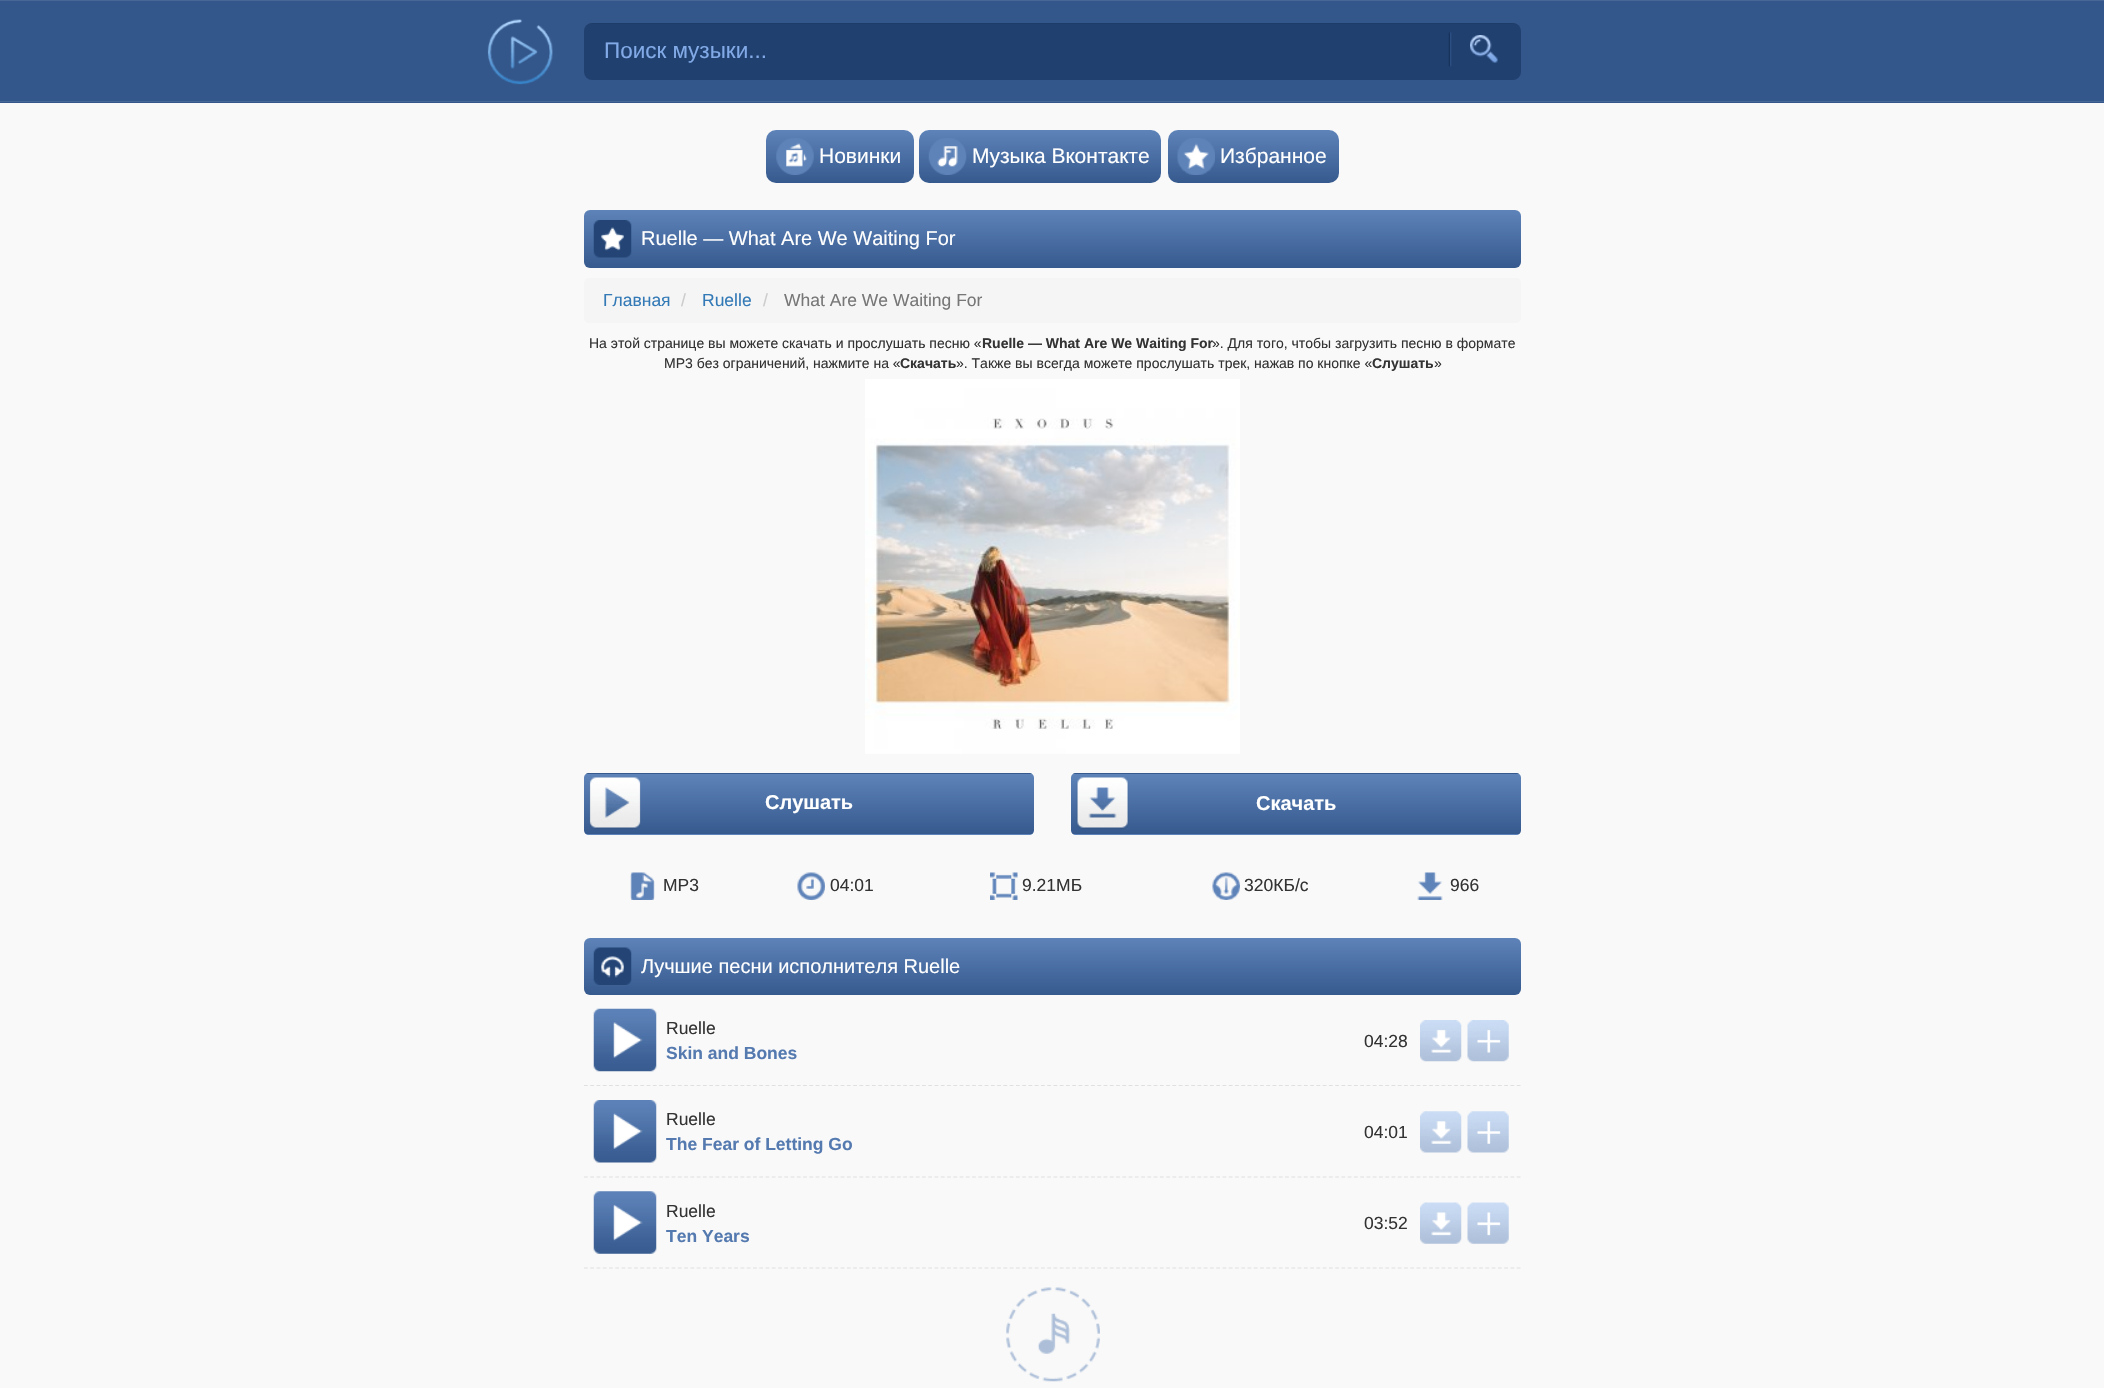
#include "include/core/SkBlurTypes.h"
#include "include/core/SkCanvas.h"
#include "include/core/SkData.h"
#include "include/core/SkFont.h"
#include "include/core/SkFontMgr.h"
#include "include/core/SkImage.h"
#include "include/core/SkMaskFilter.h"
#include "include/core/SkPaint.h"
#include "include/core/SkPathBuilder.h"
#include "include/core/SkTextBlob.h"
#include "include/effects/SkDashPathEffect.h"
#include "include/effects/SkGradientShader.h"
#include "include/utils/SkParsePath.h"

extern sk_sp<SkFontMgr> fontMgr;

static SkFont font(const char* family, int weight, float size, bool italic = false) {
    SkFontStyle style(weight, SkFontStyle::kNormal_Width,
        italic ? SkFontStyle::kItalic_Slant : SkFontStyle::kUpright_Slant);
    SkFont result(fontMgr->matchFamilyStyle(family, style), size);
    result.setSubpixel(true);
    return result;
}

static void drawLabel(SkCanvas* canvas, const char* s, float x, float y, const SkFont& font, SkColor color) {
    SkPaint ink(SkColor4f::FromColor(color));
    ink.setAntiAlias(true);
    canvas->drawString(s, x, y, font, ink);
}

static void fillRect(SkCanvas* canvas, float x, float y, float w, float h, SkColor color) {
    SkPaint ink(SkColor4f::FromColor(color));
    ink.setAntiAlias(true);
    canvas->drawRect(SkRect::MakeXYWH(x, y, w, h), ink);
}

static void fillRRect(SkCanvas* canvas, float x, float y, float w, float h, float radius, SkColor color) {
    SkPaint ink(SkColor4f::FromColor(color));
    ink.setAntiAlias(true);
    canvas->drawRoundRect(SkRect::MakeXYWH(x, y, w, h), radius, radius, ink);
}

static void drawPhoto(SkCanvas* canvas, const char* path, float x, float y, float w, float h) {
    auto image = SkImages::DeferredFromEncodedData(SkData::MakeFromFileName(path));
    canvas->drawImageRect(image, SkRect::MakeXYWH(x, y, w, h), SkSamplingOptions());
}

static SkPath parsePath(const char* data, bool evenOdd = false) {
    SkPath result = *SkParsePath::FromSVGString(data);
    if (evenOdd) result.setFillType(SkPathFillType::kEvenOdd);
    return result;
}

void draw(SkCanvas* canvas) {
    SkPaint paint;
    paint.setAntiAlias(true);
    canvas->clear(0xFFF9F9F9);
    fillRect(canvas, 0, 1, 2104, 102, 0xFF34578B);
    fillRect(canvas, 0, 0, 2104, 1, 0xFF476796);
    fillRect(canvas, 0, 101, 2104, 1, 0xFF476796);
    drawPhoto(canvas, "assets/img1.png", 487, 19, 66, 66);
    fillRRect(canvas, 584, 23, 937, 57, 8, 0xFF204070);
    paint.setColor(0x12000000);
    canvas->drawPath(parsePath("M591 24H1514C1518 24 1521 27 1521 31C1521 27 1517 23 1513 23H592C588 23 584 27 584 31C584 27 587 24 591 24Z"), paint);
    SkFont font1 = font("Liberation Sans", 400, 22.5f);
    drawLabel(canvas, "Поиск музыки...", 604, 58, font1, 0xFF81AAE7);
    drawPhoto(canvas, "assets/img2.png", 1448, 32, 4, 35);
    drawPhoto(canvas, "assets/img3.png", 1470, 35, 28, 28);
    {
        const SkColor colors[] = {0xFF5E83B9, 0xFF365A8E};
        const float stops[] = {0, 1};
        const SkPoint ends[] = {{840, 130}, {840, 183}};
        paint.setShader(SkGradientShader::MakeLinear(ends, colors, stops, 2, SkTileMode::kClamp));
        paint.setAlpha(255);
    }
    canvas->drawRoundRect(SkRect::MakeXYWH(766, 130, 148, 53), 10, 10, paint);
    drawPhoto(canvas, "assets/img4.png", 776, 138, 38, 37);
    SkFont font2 = font("Liberation Sans", 400, 21);
    drawLabel(canvas, "Новинки", 819, 163, font2, 0xFFFFFFFF);
    {
        const SkColor colors[] = {0xFF5E83B9, 0xFF365A8E};
        const float stops[] = {0, 1};
        const SkPoint ends[] = {{1040, 130}, {1040, 183}};
        paint.setShader(SkGradientShader::MakeLinear(ends, colors, stops, 2, SkTileMode::kClamp));
        paint.setAlpha(255);
    }
    canvas->drawRoundRect(SkRect::MakeXYWH(919, 130, 242, 53), 10, 10, paint);
    drawPhoto(canvas, "assets/img5.png", 928, 138, 39, 37);
    drawLabel(canvas, "Музыка Вконтакте", 972, 163, font2, 0xFFFFFFFF);
    {
        const SkColor colors[] = {0xFF5E83B9, 0xFF365A8E};
        const float stops[] = {0, 1};
        const SkPoint ends[] = {{1253, 130}, {1253, 183}};
        paint.setShader(SkGradientShader::MakeLinear(ends, colors, stops, 2, SkTileMode::kClamp));
        paint.setAlpha(255);
    }
    canvas->drawRoundRect(SkRect::MakeXYWH(1168, 130, 171, 53), 10, 10, paint);
    drawPhoto(canvas, "assets/img6.png", 1177, 138, 38, 37);
    drawLabel(canvas, "Избранное", 1220, 163, font2, 0xFFFFFFFF);
    {
        const SkColor colors[] = {0xFF5E83B9, 0xFF365A8E};
        const float stops[] = {0, 1};
        const SkPoint ends[] = {{1053, 210}, {1053, 268}};
        paint.setShader(SkGradientShader::MakeLinear(ends, colors, stops, 2, SkTileMode::kClamp));
        paint.setAlpha(255);
    }
    canvas->drawRoundRect(SkRect::MakeXYWH(584, 210, 937, 58), 6, 6, paint);
    drawPhoto(canvas, "assets/img7.png", 593, 220, 39, 38);
    SkFont font3 = font("Liberation Sans", 400, 20);
    drawLabel(canvas, "Ruelle — What Are We Waiting For", 641, 245, font3, 0xFFFFFFFF);
    fillRRect(canvas, 584, 278, 937, 45, 5, 0xFFF5F5F5);
    SkFont font4 = font("Liberation Sans", 400, 17.5f);
    drawLabel(canvas, "Главная", 603, 306, font4, 0xFF337AB7);
    drawLabel(canvas, "/", 681, 306, font4, 0xFFCCCCCC);
    drawLabel(canvas, "Ruelle", 702, 306, font4, 0xFF337AB7);
    drawLabel(canvas, "/", 763, 306, font4, 0xFFCCCCCC);
    drawLabel(canvas, "What Are We Waiting For", 784, 306, font4, 0xFF777777);
    SkFont font5 = font("Liberation Sans", 400, 14);
    drawLabel(canvas, "На этой странице вы можете скачать и прослушать песню «", 589, 348, font5, 0xFF333333);
    SkFont font6 = font("Liberation Sans", 700, 14);
    drawLabel(canvas, "Ruelle — What Are We Waiting For", 982, 348, font6, 0xFF333333);
    drawLabel(canvas, "». Для того, чтобы загрузить песню в формате", 1212, 348, font5, 0xFF333333);
    drawLabel(canvas, "MP3 без ограничений, нажмите на «", 664, 368, font5, 0xFF333333);
    drawLabel(canvas, "Скачать", 900, 368, font6, 0xFF333333);
    drawLabel(canvas, "». Также вы всегда можете прослушать трек, нажав по кнопке «", 956, 368, font5, 0xFF333333);
    drawLabel(canvas, "Слушать", 1372, 368, font6, 0xFF333333);
    drawLabel(canvas, "»", 1434, 368, font5, 0xFF333333);
    drawPhoto(canvas, "assets/img8.png", 865, 379, 375, 375);
    canvas->save();
    canvas->clipPath(parsePath("M589 773H1029C1032 773 1034 775 1034 778V830C1034 833 1032 835 1029 835H589C586 835 584 833 584 830V778C584 775 586 773 589 773Z"), true);
    {
        const SkColor colors[] = {0xFF5E83B9, 0xFF365A8E};
        const float stops[] = {0, 1};
        const SkPoint ends[] = {{809, 714}, {809, 774}};
        paint.setShader(SkGradientShader::MakeLinear(ends, colors, stops, 2, SkTileMode::kClamp));
        paint.setAlpha(255);
    }
    canvas->drawRect(SkRect::MakeXYWH(584, 773, 450, 1), paint);
    {
        const SkColor colors[] = {0xFF5E83B9, 0xFF365A8E};
        const float stops[] = {0, 1};
        const SkPoint ends[] = {{809, 774}, {809, 834}};
        paint.setShader(SkGradientShader::MakeLinear(ends, colors, stops, 2, SkTileMode::kClamp));
        paint.setAlpha(255);
    }
    canvas->drawRect(SkRect::MakeXYWH(584, 774, 450, 60), paint);
    {
        const SkColor colors[] = {0xFF5E83B9, 0xFF365A8E};
        const float stops[] = {0, 1};
        const SkPoint ends[] = {{809, 834}, {809, 894}};
        paint.setShader(SkGradientShader::MakeLinear(ends, colors, stops, 2, SkTileMode::kClamp));
        paint.setAlpha(255);
    }
    canvas->drawRect(SkRect::MakeXYWH(584, 834, 450, 1), paint);
    canvas->restore();
    drawPhoto(canvas, "assets/img9.png", 589, 777, 52, 53);
    SkFont font7 = font("Liberation Sans", 700, 20);
    drawLabel(canvas, "Слушать", 765, 809, font7, 0xFFFFFFFF);
    canvas->save();
    canvas->clipPath(parsePath("M1076 773H1516C1519 773 1521 775 1521 778V830C1521 833 1519 835 1516 835H1076C1073 835 1071 833 1071 830V778C1071 775 1073 773 1076 773Z"), true);
    {
        const SkColor colors[] = {0xFF5E83B9, 0xFF365A8E};
        const float stops[] = {0, 1};
        const SkPoint ends[] = {{1296, 714}, {1296, 774}};
        paint.setShader(SkGradientShader::MakeLinear(ends, colors, stops, 2, SkTileMode::kClamp));
        paint.setAlpha(255);
    }
    canvas->drawRect(SkRect::MakeXYWH(1071, 773, 450, 1), paint);
    {
        const SkColor colors[] = {0xFF5E83B9, 0xFF365A8E};
        const float stops[] = {0, 1};
        const SkPoint ends[] = {{1296, 774}, {1296, 834}};
        paint.setShader(SkGradientShader::MakeLinear(ends, colors, stops, 2, SkTileMode::kClamp));
        paint.setAlpha(255);
    }
    canvas->drawRect(SkRect::MakeXYWH(1071, 774, 450, 60), paint);
    {
        const SkColor colors[] = {0xFF5E83B9, 0xFF365A8E};
        const float stops[] = {0, 1};
        const SkPoint ends[] = {{1296, 834}, {1296, 894}};
        paint.setShader(SkGradientShader::MakeLinear(ends, colors, stops, 2, SkTileMode::kClamp));
        paint.setAlpha(255);
    }
    canvas->drawRect(SkRect::MakeXYWH(1071, 834, 450, 1), paint);
    canvas->restore();
    drawPhoto(canvas, "assets/img10.png", 1076, 777, 53, 53);
    drawLabel(canvas, "Скачать", 1256, 810, font7, 0xFFFFFFFF);
    drawPhoto(canvas, "assets/img11.png", 630, 872, 25, 28);
    drawLabel(canvas, "MP3", 663, 891, font4, 0xFF333333);
    drawPhoto(canvas, "assets/img12.png", 797, 872, 28, 28);
    drawLabel(canvas, "04:01", 830, 891, font4, 0xFF333333);
    drawPhoto(canvas, "assets/img13.png", 990, 872, 28, 28);
    drawLabel(canvas, "9.21МБ", 1022, 891, font4, 0xFF333333);
    drawPhoto(canvas, "assets/img14.png", 1212, 872, 28, 28);
    drawLabel(canvas, "320КБ/с", 1244, 891, font4, 0xFF333333);
    drawPhoto(canvas, "assets/img15.png", 1417, 872, 26, 28);
    drawLabel(canvas, "966", 1450, 891, font4, 0xFF333333);
    {
        const SkColor colors[] = {0xFF5E83B9, 0xFF365A8E};
        const float stops[] = {0, 1};
        const SkPoint ends[] = {{1053, 938}, {1053, 995}};
        paint.setShader(SkGradientShader::MakeLinear(ends, colors, stops, 2, SkTileMode::kClamp));
        paint.setAlpha(255);
    }
    canvas->drawRoundRect(SkRect::MakeXYWH(584, 938, 937, 57), 6, 6, paint);
    drawPhoto(canvas, "assets/img16.png", 593, 947, 39, 38);
    drawLabel(canvas, "Лучшие песни исполнителя Ruelle", 641, 973, font3, 0xFFFFFFFF);
    paint.setStroke(true);
    paint.setStrokeWidth(1.2f);
    paint.setShader(nullptr);
    paint.setColor(0xFFE0E0E0);
    paint.setPathEffect(SkDashPathEffect::Make({{3.75f, 2.51f}}, 0));
    canvas->drawPath(parsePath("M584 1085.5H1521"), paint);
    paint.setPathEffect(nullptr);
    drawPhoto(canvas, "assets/img17.png", 593, 1008, 64, 64);
    drawLabel(canvas, "Ruelle", 666, 1034, font4, 0xFF333333);
    SkFont font8 = font("Liberation Sans", 700, 17.5f);
    drawLabel(canvas, "Skin and Bones", 666, 1059, font8, 0xFF557AB0);
    drawLabel(canvas, "04:28", 1364, 1047, font4, 0xFF333333);
    drawPhoto(canvas, "assets/img18.png", 1420, 1020, 42, 42);
    drawPhoto(canvas, "assets/img19.png", 1467, 1020, 42, 42);
    paint.setPathEffect(SkDashPathEffect::Make({{3.75f, 2.51f}}, 0));
    canvas->drawPath(parsePath("M584 1177H1521"), paint);
    paint.setPathEffect(nullptr);
    drawPhoto(canvas, "assets/img20.png", 593, 1100, 64, 63);
    drawLabel(canvas, "Ruelle", 666, 1125, font4, 0xFF333333);
    drawLabel(canvas, "The Fear of Letting Go", 666, 1150, font8, 0xFF557AB0);
    drawLabel(canvas, "04:01", 1364, 1138, font4, 0xFF333333);
    drawPhoto(canvas, "assets/img21.png", 1420, 1111, 42, 42);
    drawPhoto(canvas, "assets/img22.png", 1467, 1111, 42, 42);
    paint.setPathEffect(SkDashPathEffect::Make({{3.75f, 2.51f}}, 0));
    canvas->drawPath(parsePath("M584 1268H1521"), paint);
    paint.setPathEffect(nullptr);
    drawPhoto(canvas, "assets/img23.png", 593, 1191, 64, 63);
    drawLabel(canvas, "Ruelle", 666, 1217, font4, 0xFF333333);
    drawLabel(canvas, "Ten Years", 666, 1242, font8, 0xFF557AB0);
    drawLabel(canvas, "03:52", 1364, 1229, font4, 0xFF333333);
    drawPhoto(canvas, "assets/img24.png", 1420, 1202, 42, 42);
    drawPhoto(canvas, "assets/img25.png", 1467, 1202, 42, 42);
    drawPhoto(canvas, "assets/img26.png", 1006, 1287, 94, 95);
}
